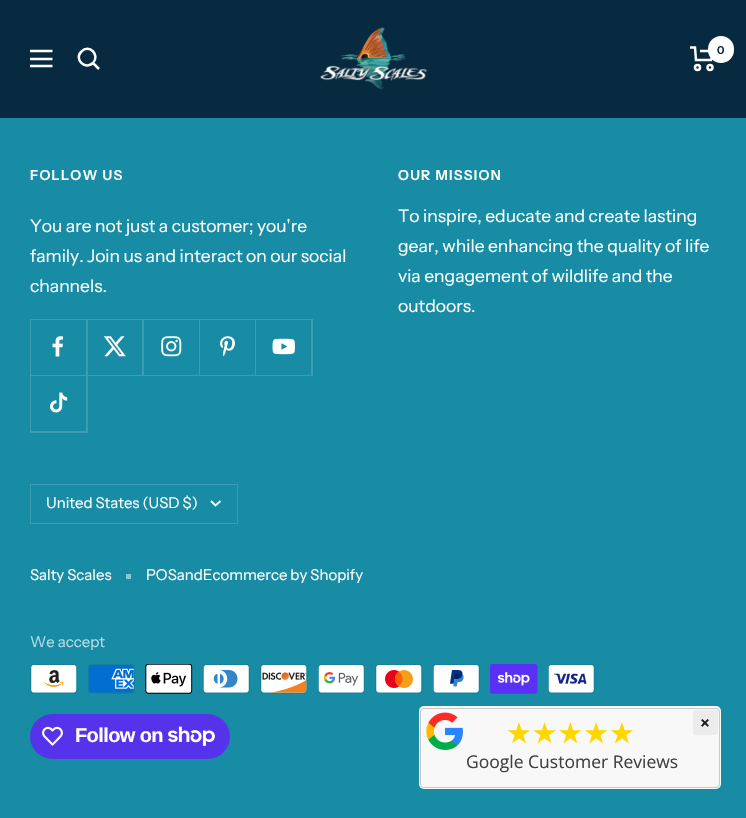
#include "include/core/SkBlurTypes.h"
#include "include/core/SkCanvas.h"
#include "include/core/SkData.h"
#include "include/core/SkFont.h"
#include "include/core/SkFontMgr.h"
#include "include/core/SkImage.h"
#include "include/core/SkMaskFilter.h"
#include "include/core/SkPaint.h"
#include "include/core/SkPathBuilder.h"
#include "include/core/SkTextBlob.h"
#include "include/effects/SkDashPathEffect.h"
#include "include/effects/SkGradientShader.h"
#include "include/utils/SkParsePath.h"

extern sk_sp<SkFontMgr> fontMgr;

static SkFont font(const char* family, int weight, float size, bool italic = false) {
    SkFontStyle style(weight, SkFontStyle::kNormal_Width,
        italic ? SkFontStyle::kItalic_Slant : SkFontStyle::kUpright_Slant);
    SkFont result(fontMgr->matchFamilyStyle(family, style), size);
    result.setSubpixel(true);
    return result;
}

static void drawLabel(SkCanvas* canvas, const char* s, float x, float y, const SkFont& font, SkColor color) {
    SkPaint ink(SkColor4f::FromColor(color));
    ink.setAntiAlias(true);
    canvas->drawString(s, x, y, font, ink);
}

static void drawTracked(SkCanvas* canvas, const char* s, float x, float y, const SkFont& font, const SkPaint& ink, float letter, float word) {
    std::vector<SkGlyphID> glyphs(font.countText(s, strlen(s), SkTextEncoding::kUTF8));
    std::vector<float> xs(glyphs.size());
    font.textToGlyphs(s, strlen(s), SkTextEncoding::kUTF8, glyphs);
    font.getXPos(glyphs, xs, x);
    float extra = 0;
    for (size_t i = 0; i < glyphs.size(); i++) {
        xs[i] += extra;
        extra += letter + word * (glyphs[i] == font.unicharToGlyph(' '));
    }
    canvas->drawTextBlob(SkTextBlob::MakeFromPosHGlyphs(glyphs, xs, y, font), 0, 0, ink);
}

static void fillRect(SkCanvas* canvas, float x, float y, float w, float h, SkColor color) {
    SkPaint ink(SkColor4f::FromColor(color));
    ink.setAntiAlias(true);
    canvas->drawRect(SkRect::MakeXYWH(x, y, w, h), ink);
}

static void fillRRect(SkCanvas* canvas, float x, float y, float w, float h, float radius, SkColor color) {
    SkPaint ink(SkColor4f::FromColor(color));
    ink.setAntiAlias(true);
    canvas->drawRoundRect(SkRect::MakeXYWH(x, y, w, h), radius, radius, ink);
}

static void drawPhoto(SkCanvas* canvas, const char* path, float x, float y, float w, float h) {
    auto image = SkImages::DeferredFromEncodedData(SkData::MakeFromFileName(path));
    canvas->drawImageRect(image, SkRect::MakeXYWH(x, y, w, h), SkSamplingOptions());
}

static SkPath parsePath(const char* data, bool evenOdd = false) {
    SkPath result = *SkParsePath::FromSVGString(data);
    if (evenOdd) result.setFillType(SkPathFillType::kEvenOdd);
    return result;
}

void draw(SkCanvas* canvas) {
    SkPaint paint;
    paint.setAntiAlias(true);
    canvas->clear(0xFF178CA4);
    fillRect(canvas, 0, 0, 746, 118, 0xFF072A40);
    paint.setStroke(true);
    paint.setStrokeWidth(2.5f);
    paint.setColor(0xFFFFFFFF);
    canvas->drawPath(parsePath("M30 51H52.5M30 66H52.5ZM30 59H52.5Z"), paint);
    canvas->drawPath(parsePath("M93 63C100.5 55 89 43.5 81.5 51.5C73.5 59 85 70.5 93 63ZM93 63L99 69"), paint);
    drawPhoto(canvas, "assets/img1.png", 320, 27, 108, 63);
    canvas->drawPath(parsePath("M690 47.5H695L696 60H711L714 51H700"), paint);
    canvas->drawCircle(697.5f, 67.5f, 2.5f, paint);
    canvas->drawCircle(710, 67.5f, 2.5f, paint);
    fillRRect(canvas, 708, 36, 26, 27, 13, 0xFFFFFFFF);
    SkFont font1 = font("Instrument Sans", 600, 11);
    drawLabel(canvas, "0", 717, 54, font1, 0xFF072A40);
    SkFont font2 = font("Instrument Sans", 600, 13.75f);
    paint.setStroke(false);
    drawTracked(canvas, "FOLLOW US", 30, 180, font2, paint, 1.25f, 0);
    SkFont font3 = font("Instrument Sans", 400, 17.5f);
    drawLabel(canvas, "You are not just a customer; you're", 30, 232, font3, 0xFFFFFFFF);
    drawLabel(canvas, "family. Join us and interact on our social", 30, 262, font3, 0xFFFFFFFF);
    drawLabel(canvas, "channels.", 30, 292, font3, 0xFFFFFFFF);
    paint.setColor(0xFF3A9DB2);
    canvas->drawPath(parsePath("M31 375V376H88V320H86V375Z"), paint);
    fillRect(canvas, 30, 375, 1, 1, 0xFF3A9DB2);
    fillRect(canvas, 30, 319, 58, 1, 0xFF3A9DB2);
    fillRect(canvas, 30, 319, 1, 56, 0xFF3A9DB2);
    drawPhoto(canvas, "assets/img2.png", 52, 336, 11, 21);
    canvas->drawPath(parsePath("M88 375V376H144V320H142V375Z"), paint);
    fillRect(canvas, 86, 319, 58, 1, 0xFF3A9DB2);
    drawPhoto(canvas, "assets/img3.png", 103, 336, 23, 21);
    canvas->drawPath(parsePath("M144 375V376H200V320H199V375Z"), paint);
    fillRect(canvas, 143, 319, 57, 1, 0xFF3A9DB2);
    drawPhoto(canvas, "assets/img4.png", 161, 336, 21, 21);
    canvas->drawPath(parsePath("M200 375V376H256V320H255V375Z"), paint);
    fillRect(canvas, 199, 319, 57, 1, 0xFF3A9DB2);
    drawPhoto(canvas, "assets/img5.png", 220, 336, 15, 21);
    canvas->drawPath(parsePath("M256 375V376H313V320H311V375Z"), paint);
    fillRect(canvas, 255, 319, 58, 1, 0xFF3A9DB2);
    drawPhoto(canvas, "assets/img6.png", 272, 338, 23, 17);
    canvas->drawPath(parsePath("M31 431V433H88V376H86V431Z"), paint);
    fillRect(canvas, 30, 375, 1, 58, 0xFF3A9DB2);
    drawPhoto(canvas, "assets/img7.png", 50, 392, 18, 21);
    paint.setColor(0xFFFFFFFF);
    drawTracked(canvas, "OUR MISSION", 398, 180, font2, paint, 1.25f, 0);
    drawLabel(canvas, "To inspire, educate and create lasting", 398, 222, font3, 0xFFFFFFFF);
    drawLabel(canvas, "gear, while enhancing the quality of life", 398, 252, font3, 0xFFFFFFFF);
    drawLabel(canvas, "via engagement of wildlife and the", 398, 282, font3, 0xFFFFFFFF);
    drawLabel(canvas, "outdoors.", 398, 312, font3, 0xFFFFFFFF);
    paint.setStroke(true);
    paint.setStrokeWidth(1);
    paint.setColor(0xFF3A9DB2);
    canvas->drawRect(SkRect::MakeXYWH(30.5f, 484.5f, 207, 39), paint);
    SkFont font4 = font("Instrument Sans", 400, 15);
    drawLabel(canvas, "United States (USD $)", 46, 508, font4, 0xFFFFFFFF);
    paint.setStrokeWidth(1.9f);
    paint.setColor(0xFFFFFFFF);
    canvas->drawPath(parsePath("M211 501L215.5 505.5L220.5 501"), paint);
    drawLabel(canvas, "Salty Scales", 30, 580, font4, 0xFFFFFFFF);
    fillRect(canvas, 126, 574, 5, 5, 0xFF8BC6D2);
    drawLabel(canvas, "POSandEcommerce by Shopify", 146, 580, font4, 0xFFFFFFFF);
    drawLabel(canvas, "We accept", 30, 647, font4, 0xFFB9DDE4);
    drawPhoto(canvas, "assets/img8.png", 30, 664, 48, 30);
    drawPhoto(canvas, "assets/img9.png", 88, 664, 47, 30);
    drawPhoto(canvas, "assets/img10.png", 145, 664, 48, 30);
    drawPhoto(canvas, "assets/img11.png", 203, 664, 47, 30);
    drawPhoto(canvas, "assets/img12.png", 260, 664, 48, 30);
    drawPhoto(canvas, "assets/img13.png", 318, 664, 47, 30);
    drawPhoto(canvas, "assets/img14.png", 375, 664, 48, 30);
    drawPhoto(canvas, "assets/img15.png", 433, 664, 47, 30);
    drawPhoto(canvas, "assets/img16.png", 490, 664, 48, 30);
    drawPhoto(canvas, "assets/img17.png", 548, 664, 47, 30);
    fillRRect(canvas, 30, 714, 200, 45, 22.5f, 0xFF5433EB);
    drawPhoto(canvas, "assets/img18.png", 42, 726, 21, 20);
    SkFont font5 = font("Liberation Sans", 700, 20);
    paint.setStroke(false);
    drawTracked(canvas, "Follow on", 75, 742, font5, paint, -0.6f, 0);
    drawPhoto(canvas, "assets/img19.png", 168, 726, 47, 20);
    fillRRect(canvas, 419, 706, 302, 83, 5, 0xFFF8F8F9);
    paint.setStroke(true);
    paint.setStrokeWidth(1);
    paint.setColor(0xFFC9C9CB);
    canvas->drawRoundRect(SkRect::MakeXYWH(420.5f, 708.5f, 299, 79), 3.5f, 3.5f, paint);
    drawPhoto(canvas, "assets/img20.png", 426, 712, 37, 38);
    SkFont font6 = font("DejaVu Sans", 400, 28.75f);
    drawLabel(canvas, "★★★★★", 506, 743, font6, 0xFFFFD700);
    SkFont font7 = font("Open Sans", 400, 17.5f);
    drawLabel(canvas, "Google Customer Reviews", 466, 768, font7, 0xFF404040);
    fillRRect(canvas, 693, 710, 25, 25, 2.5f, 0xFFECECED);
    SkFont font8 = font("Open Sans", 700, 17.5f);
    drawLabel(canvas, "×", 700, 729, font8, 0xFF1F1F1F);
}
